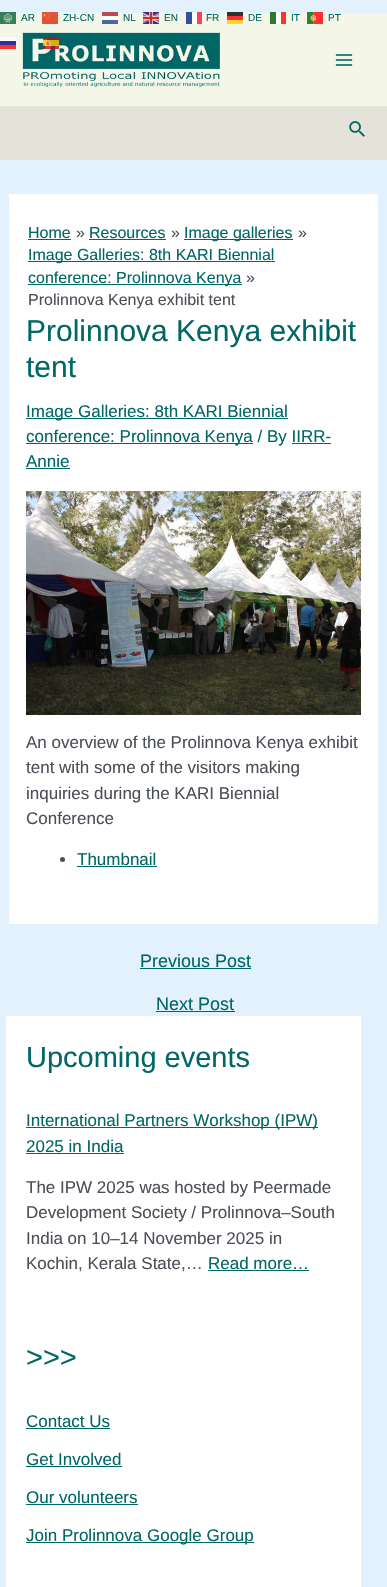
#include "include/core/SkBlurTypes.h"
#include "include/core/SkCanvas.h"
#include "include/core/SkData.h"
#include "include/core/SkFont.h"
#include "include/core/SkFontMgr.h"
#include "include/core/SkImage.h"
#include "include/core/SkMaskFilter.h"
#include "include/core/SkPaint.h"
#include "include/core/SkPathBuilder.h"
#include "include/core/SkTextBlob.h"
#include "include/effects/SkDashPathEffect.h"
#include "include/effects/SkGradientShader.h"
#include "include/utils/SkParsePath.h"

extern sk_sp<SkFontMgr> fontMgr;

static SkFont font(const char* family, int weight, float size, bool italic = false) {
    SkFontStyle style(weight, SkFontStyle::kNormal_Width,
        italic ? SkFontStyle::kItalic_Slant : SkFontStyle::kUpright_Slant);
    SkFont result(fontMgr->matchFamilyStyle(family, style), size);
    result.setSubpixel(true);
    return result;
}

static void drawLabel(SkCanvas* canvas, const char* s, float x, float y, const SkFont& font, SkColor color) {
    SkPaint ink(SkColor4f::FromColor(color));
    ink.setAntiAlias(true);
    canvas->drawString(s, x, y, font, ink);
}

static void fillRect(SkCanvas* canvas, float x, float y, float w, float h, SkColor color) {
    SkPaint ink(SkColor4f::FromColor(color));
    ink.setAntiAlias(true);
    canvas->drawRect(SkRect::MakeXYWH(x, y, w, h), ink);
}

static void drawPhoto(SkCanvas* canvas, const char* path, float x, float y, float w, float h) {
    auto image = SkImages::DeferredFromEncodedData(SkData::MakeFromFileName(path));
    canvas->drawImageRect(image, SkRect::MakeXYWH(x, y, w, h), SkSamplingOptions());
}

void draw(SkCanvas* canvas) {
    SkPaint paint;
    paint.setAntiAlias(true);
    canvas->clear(0xFFE2F1FB);
    fillRect(canvas, 276, 12, 5, 1, 0xFFF9FCFE);
    fillRect(canvas, 281, 12, 5, 1, 0xFFFB3233);
    fillRect(canvas, 270, 12, 6, 1, 0xFF327833);
    fillRect(canvas, 227, 12, 16, 1, 0xFF2D3032);
    fillRect(canvas, 192, 12, 5, 1, 0xFFF9FCFE);
    fillRect(canvas, 197, 12, 5, 1, 0xFFF44659);
    fillRect(canvas, 186, 12, 6, 1, 0xFF325198);
    fillRect(canvas, 102, 12, 16, 1, 0xFFBD4953);
    fillRect(canvas, 0, 13, 387, 93, 0xFFF4F7E7);
    drawPhoto(canvas, "assets/img1.png", 0, 12, 16, 12);
    SkFont font1 = font("Liberation Sans", 400, 10);
    drawLabel(canvas, "AR", 21, 21, font1, 0xFF006766);
    drawPhoto(canvas, "assets/img2.png", 42, 12, 16, 12);
    drawLabel(canvas, "ZH-CN", 63, 21, font1, 0xFF006766);
    drawLabel(canvas, "NL", 123, 21, font1, 0xFF006766);
    fillRect(canvas, 102, 20, 16, 4, 0xFF4B699D);
    drawPhoto(canvas, "assets/img3.png", 143, 12, 16, 12);
    drawLabel(canvas, "EN", 164, 21, font1, 0xFF006766);
    drawLabel(canvas, "FR", 206, 21, font1, 0xFF006766);
    drawLabel(canvas, "DE", 248, 21, font1, 0xFF006766);
    fillRect(canvas, 227, 20, 16, 4, 0xFFFDD52E);
    fillRect(canvas, 227, 16, 16, 4, 0xFFFD312E);
    drawLabel(canvas, "IT", 291, 21, font1, 0xFF006766);
    drawPhoto(canvas, "assets/img4.png", 307, 12, 16, 12);
    drawLabel(canvas, "PT", 328, 21, font1, 0xFF006766);
    fillRect(canvas, 0, 37, 16, 4, 0xFFFDFDFA);
    drawPhoto(canvas, "assets/img6.png", 22, 32, 198, 56);
    drawPhoto(canvas, "assets/img5.png", 43, 37, 16, 12);
    fillRect(canvas, 0, 41, 16, 4, 0xFF323293);
    fillRect(canvas, 0, 45, 16, 4, 0xFFFC322F);
    fillRect(canvas, 276, 13, 5, 11, 0xFFFDFDFA);
    fillRect(canvas, 281, 13, 5, 11, 0xFFFC3332);
    fillRect(canvas, 270, 13, 6, 11, 0xFF337832);
    fillRect(canvas, 227, 13, 16, 3, 0xFF31312E);
    fillRect(canvas, 192, 13, 5, 11, 0xFFFDFDFA);
    fillRect(canvas, 197, 13, 5, 11, 0xFFF54658);
    fillRect(canvas, 186, 13, 6, 11, 0xFF335198);
    fillRect(canvas, 102, 16, 16, 4, 0xFFFDFDFA);
    fillRect(canvas, 102, 13, 16, 3, 0xFFBE4952);
    drawPhoto(canvas, "assets/img7.png", 335, 54, 18, 12);
    fillRect(canvas, 0, 106, 387, 54, 0xFFE4E2D9);
    drawPhoto(canvas, "assets/img8.png", 349, 121, 16, 16);
    fillRect(canvas, 9, 194, 369, 730, 0xFFFFFFFF);
    SkFont font2 = font("Liberation Sans", 400, 16);
    drawLabel(canvas, "Home", 28, 238, font2, 0xFF006766);
    fillRect(canvas, 28, 239, 43, 1, 0xFF006766);
    drawLabel(canvas, "»", 76, 238, font2, 0xFF4B4F58);
    drawLabel(canvas, "Resources", 89, 238, font2, 0xFF006766);
    fillRect(canvas, 89, 239, 77, 1, 0xFF006766);
    drawLabel(canvas, "»", 171, 238, font2, 0xFF4B4F58);
    fillRect(canvas, 184, 239, 109, 1, 0xFF006766);
    drawLabel(canvas, "Image galleries", 184, 238, font2, 0xFF006766);
    drawLabel(canvas, "»", 298, 238, font2, 0xFF4B4F58);
    fillRect(canvas, 28, 261, 247, 1, 0xFF006766);
    drawLabel(canvas, "Image Galleries: 8th KARI Biennial", 28, 260, font2, 0xFF006766);
    fillRect(canvas, 28, 284, 214, 1, 0xFF006766);
    drawLabel(canvas, "conference: Prolinnova Kenya", 28, 283, font2, 0xFF006766);
    drawLabel(canvas, "»", 246, 283, font2, 0xFF4B4F58);
    drawLabel(canvas, "Prolinnova Kenya exhibit tent", 28, 305, font2, 0xFF4B4F58);
    SkFont font3 = font("Liberation Sans", 400, 30);
    drawLabel(canvas, "Prolinnova Kenya exhibit", 26, 341, font3, 0xFF006766);
    drawLabel(canvas, "tent", 26, 377, font3, 0xFF006766);
    fillRect(canvas, 26, 418, 262, 1, 0xFF006766);
    SkFont font4 = font("Liberation Sans", 400, 17);
    drawLabel(canvas, "Image Galleries: 8th KARI Biennial", 26, 417, font4, 0xFF006766);
    fillRect(canvas, 26, 443, 227, 1, 0xFF006766);
    drawLabel(canvas, "conference: Prolinnova Kenya / By IIRR-", 26, 442, font4, 0xFF006766);
    drawLabel(canvas, "Annie", 26, 467, font4, 0xFF006766);
    fillRect(canvas, 292, 443, 39, 1, 0xFF006766);
    fillRect(canvas, 26, 468, 44, 1, 0xFF006766);
    drawPhoto(canvas, "assets/img9.png", 26, 491, 335, 224);
    drawLabel(canvas, "An overview of the Prolinnova Kenya exhibit", 26, 748, font4, 0xFF4B4F58);
    drawLabel(canvas, "tent with some of the visitors making", 26, 773, font4, 0xFF4B4F58);
    drawLabel(canvas, "inquiries during the KARI Biennial", 26, 799, font4, 0xFF4B4F58);
    drawLabel(canvas, "Conference", 26, 824, font4, 0xFF4B4F58);
    paint.setColor(0xFF4B4F58);
    canvas->drawCircle(62.5f, 859.5f, 2.5f, paint);
    drawLabel(canvas, "Thumbnail", 77, 865, font4, 0xFF006766);
    fillRect(canvas, 77, 866, 80, 1, 0xFF006766);
    SkFont font5 = font("Liberation Sans", 400, 18);
    drawLabel(canvas, "Previous Post", 140, 967, font5, 0xFF006766);
    fillRect(canvas, 140, 968, 111, 1, 0xFF006766);
    drawLabel(canvas, "Next Post", 156, 1010, font5, 0xFF006766);
    fillRect(canvas, 156, 1011, 79, 1, 0xFF006766);
    fillRect(canvas, 6, 1016, 355, 571, 0xFFFFFFFF);
    SkFont font6 = font("Liberation Sans", 400, 29);
    drawLabel(canvas, "Upcoming events", 26, 1067, font6, 0xFF006766);
    fillRect(canvas, 26, 1127, 292, 1, 0xFF006766);
    drawLabel(canvas, "International Partners Workshop (IPW)", 26, 1126, font4, 0xFF006766);
    drawLabel(canvas, "2025 in India", 26, 1152, font4, 0xFF006766);
    fillRect(canvas, 26, 1153, 98, 1, 0xFF006766);
    drawLabel(canvas, "The IPW 2025 was hosted by Peermade", 26, 1193, font4, 0xFF4B4F58);
    drawLabel(canvas, "Development Society / Prolinnova–South", 26, 1218, font4, 0xFF4B4F58);
    drawLabel(canvas, "India on 10–14 November 2025 in", 26, 1244, font4, 0xFF4B4F58);
    drawLabel(canvas, "Kochin, Kerala State,…", 26, 1269, font4, 0xFF4B4F58);
    drawLabel(canvas, "Read more…", 208, 1269, font4, 0xFF006766);
    fillRect(canvas, 208, 1270, 101, 1, 0xFF006766);
    drawLabel(canvas, ">>>", 26, 1367, font6, 0xFF006766);
    drawLabel(canvas, "Contact Us", 26, 1427, font4, 0xFF006766);
    fillRect(canvas, 26, 1428, 84, 1, 0xFF006766);
    drawLabel(canvas, "Get Involved", 26, 1465, font4, 0xFF006766);
    fillRect(canvas, 26, 1466, 96, 1, 0xFF006766);
    drawLabel(canvas, "Our volunteers", 26, 1503, font4, 0xFF006766);
    fillRect(canvas, 26, 1504, 112, 1, 0xFF006766);
    fillRect(canvas, 26, 1542, 228, 1, 0xFF006766);
    drawLabel(canvas, "Join Prolinnova Google Group", 26, 1541, font4, 0xFF006766);
}
